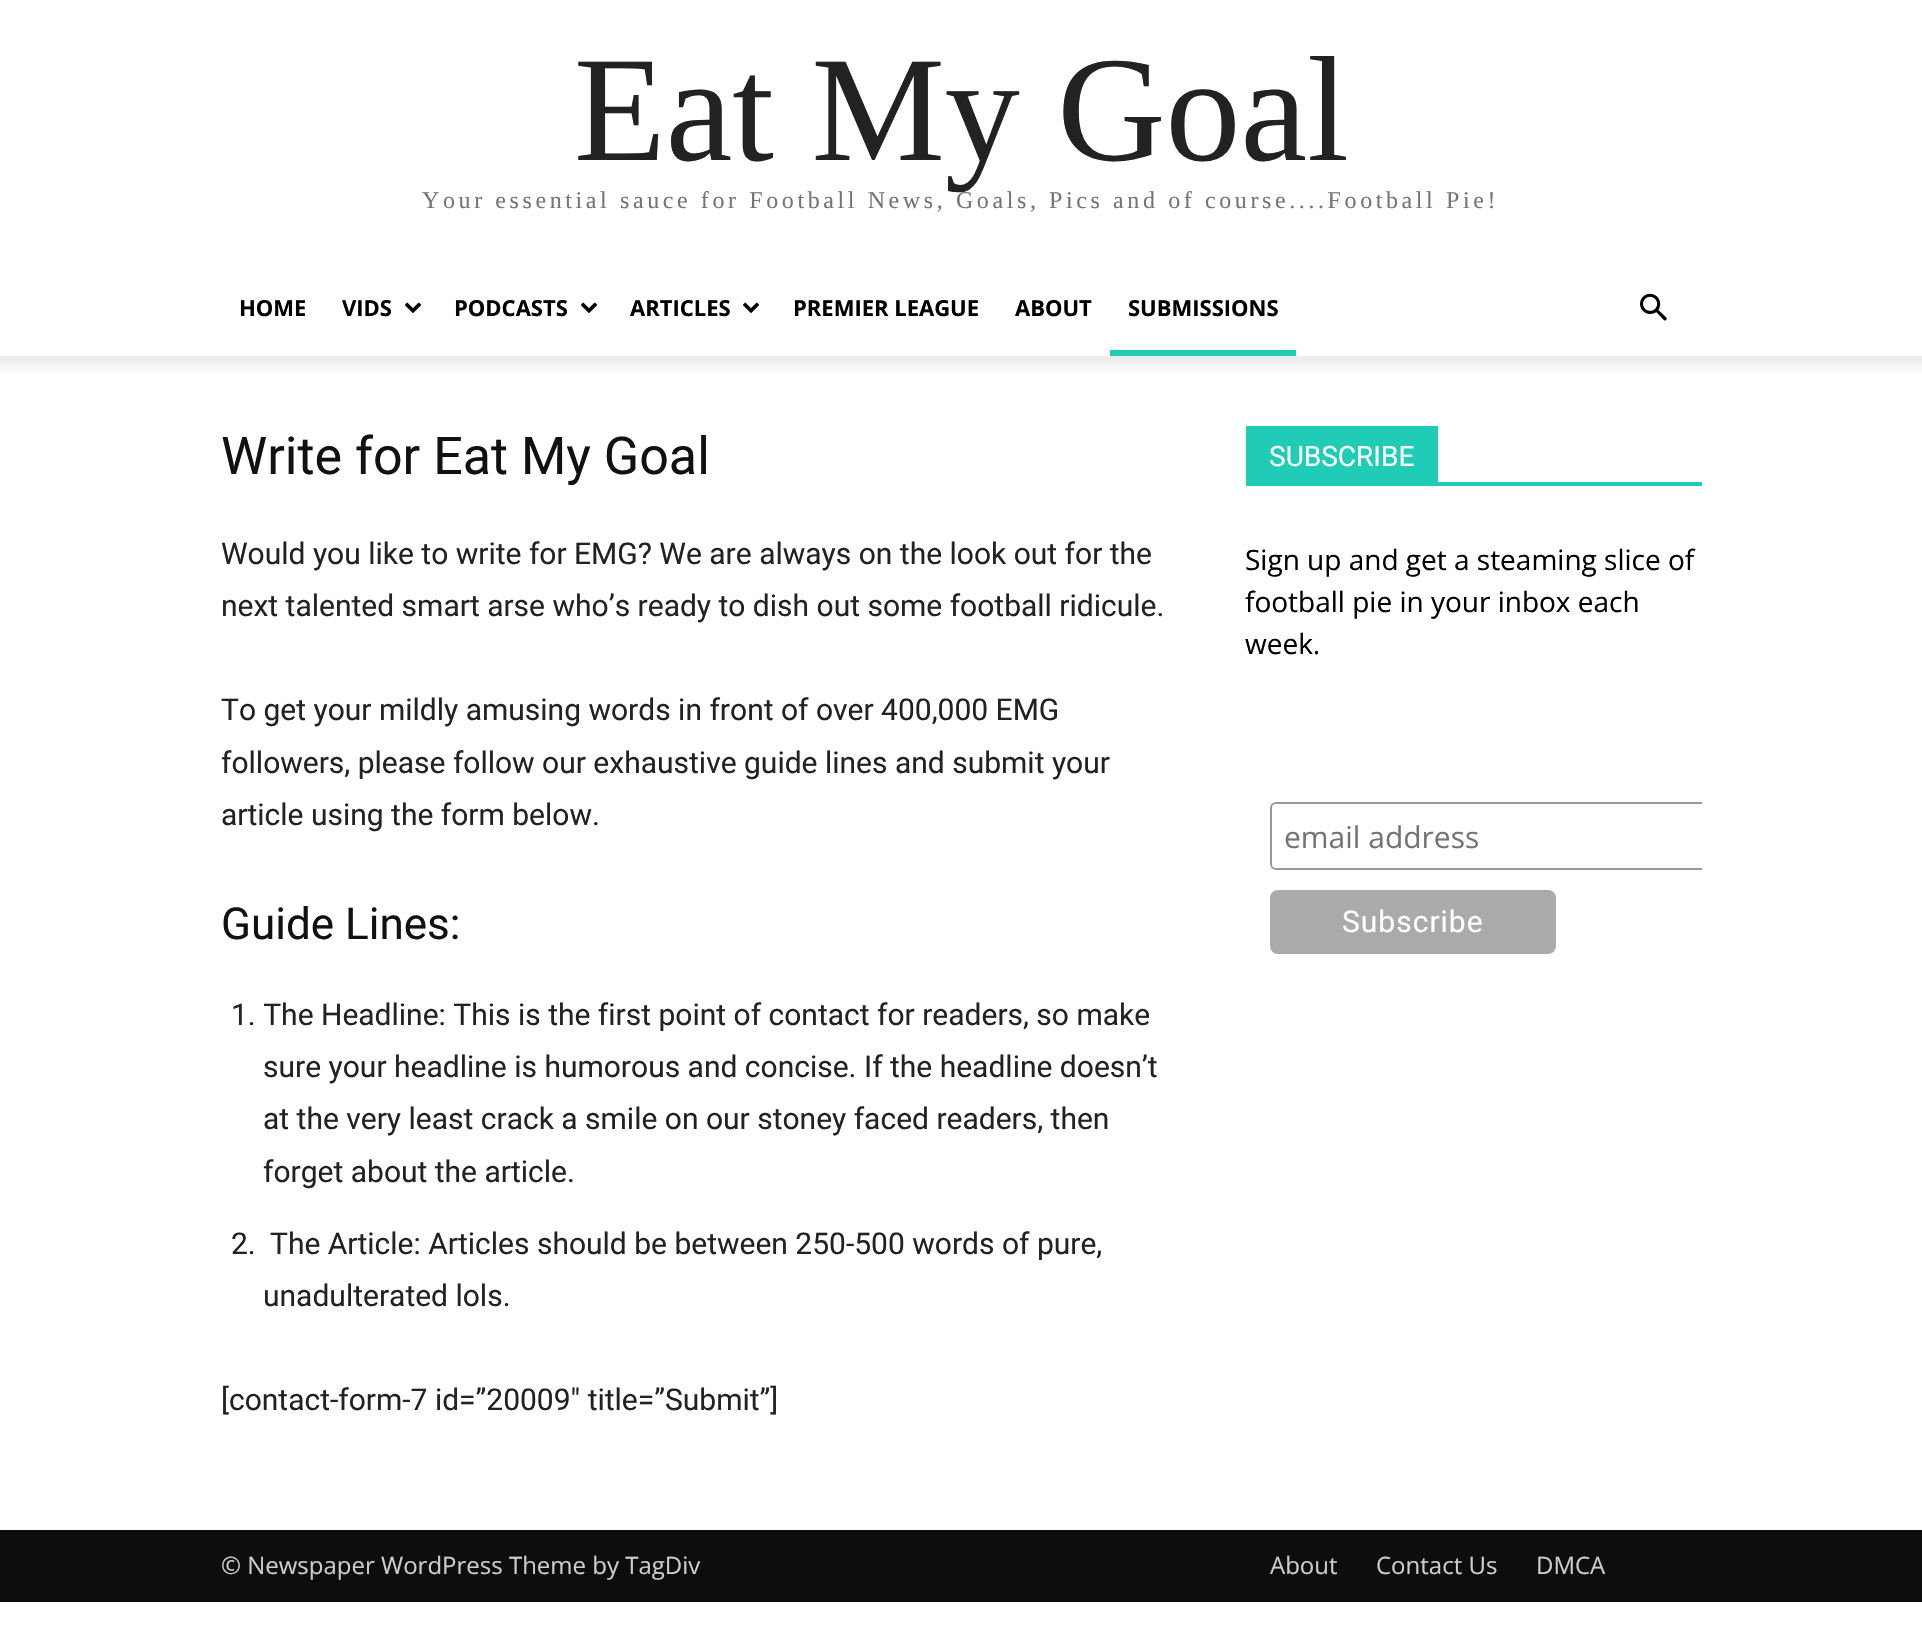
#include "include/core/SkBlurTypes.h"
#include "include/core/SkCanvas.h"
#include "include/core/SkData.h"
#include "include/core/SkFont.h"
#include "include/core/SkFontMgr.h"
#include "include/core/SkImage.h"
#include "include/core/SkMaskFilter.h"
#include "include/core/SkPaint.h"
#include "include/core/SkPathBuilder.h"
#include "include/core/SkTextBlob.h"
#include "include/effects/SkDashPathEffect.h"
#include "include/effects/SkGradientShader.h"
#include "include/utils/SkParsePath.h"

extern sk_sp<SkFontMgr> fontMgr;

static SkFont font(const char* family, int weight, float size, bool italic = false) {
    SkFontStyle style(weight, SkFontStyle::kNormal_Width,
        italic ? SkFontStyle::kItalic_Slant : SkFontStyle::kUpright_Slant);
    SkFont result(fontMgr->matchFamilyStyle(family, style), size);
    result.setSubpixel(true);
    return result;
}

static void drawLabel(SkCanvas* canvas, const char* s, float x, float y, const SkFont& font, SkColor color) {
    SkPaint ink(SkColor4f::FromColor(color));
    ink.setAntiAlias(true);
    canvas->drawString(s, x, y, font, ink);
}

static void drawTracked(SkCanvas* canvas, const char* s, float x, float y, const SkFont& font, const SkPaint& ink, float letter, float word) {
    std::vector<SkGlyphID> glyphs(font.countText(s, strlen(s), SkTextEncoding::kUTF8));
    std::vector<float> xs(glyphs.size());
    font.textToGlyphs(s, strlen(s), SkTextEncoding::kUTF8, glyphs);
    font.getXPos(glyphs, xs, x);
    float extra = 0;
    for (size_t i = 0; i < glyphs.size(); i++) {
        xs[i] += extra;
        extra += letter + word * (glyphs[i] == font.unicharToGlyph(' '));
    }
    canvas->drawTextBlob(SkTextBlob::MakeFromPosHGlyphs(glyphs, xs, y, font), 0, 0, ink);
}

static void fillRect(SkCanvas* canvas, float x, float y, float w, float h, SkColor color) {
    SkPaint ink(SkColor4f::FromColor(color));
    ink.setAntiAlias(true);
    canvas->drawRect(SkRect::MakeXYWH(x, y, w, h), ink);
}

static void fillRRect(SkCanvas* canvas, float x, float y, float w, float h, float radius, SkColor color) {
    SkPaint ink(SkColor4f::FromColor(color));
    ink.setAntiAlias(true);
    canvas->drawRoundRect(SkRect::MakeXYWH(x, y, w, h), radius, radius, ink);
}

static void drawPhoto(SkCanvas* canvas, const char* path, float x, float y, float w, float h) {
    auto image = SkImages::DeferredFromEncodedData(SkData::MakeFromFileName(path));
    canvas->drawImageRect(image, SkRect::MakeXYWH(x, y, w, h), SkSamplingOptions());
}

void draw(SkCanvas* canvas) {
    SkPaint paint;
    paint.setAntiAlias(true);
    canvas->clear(0xFFFFFFFF);
    SkFont font1 = font("Liberation Serif", 400, 150);
    drawLabel(canvas, "Eat My Goal", 574, 160, font1, 0xFF222222);
    SkFont font2 = font("Liberation Serif", 400, 24);
    paint.setColor(0xFF757575);
    drawTracked(canvas, "Your essential sauce for Football News, Goals, Pics and of course....Football Pie!", 422, 208, font2, paint, 3.6f, 0);
    SkFont font3 = font("Open Sans", 700, 22);
    drawLabel(canvas, "HOME", 239, 316, font3, 0xFF000000);
    drawLabel(canvas, "VIDS", 342, 316, font3, 0xFF000000);
    drawPhoto(canvas, "assets/img1.png", 405, 302, 16, 11);
    drawLabel(canvas, "PODCASTS", 454, 316, font3, 0xFF000000);
    drawPhoto(canvas, "assets/img1.png", 581, 302, 16, 11);
    drawLabel(canvas, "ARTICLES", 630, 316, font3, 0xFF000000);
    drawPhoto(canvas, "assets/img1.png", 743, 302, 16, 11);
    drawLabel(canvas, "PREMIER LEAGUE", 793, 316, font3, 0xFF000000);
    drawLabel(canvas, "ABOUT", 1015, 316, font3, 0xFF000000);
    drawLabel(canvas, "SUBMISSIONS", 1128, 316, font3, 0xFF000000);
    fillRect(canvas, 1110, 350, 186, 6, 0xFF20CCB5);
    drawPhoto(canvas, "assets/img2.png", 1640, 293, 27, 28);
    drawPhoto(canvas, "assets/img3.png", 0, 356, 1922, 17);
    SkFont font4 = font("Roboto", 400, 52);
    drawLabel(canvas, "Write for Eat My Goal", 221, 474, font4, 0xFF111111);
    SkFont font5 = font("Roboto", 400, 30);
    drawLabel(canvas, "Would you like to write for EMG? We are always on the look out for the", 221, 564, font5, 0xFF222222);
    drawLabel(canvas, "next talented smart arse who’s ready to dish out some football ridicule.", 221, 616, font5, 0xFF222222);
    drawLabel(canvas, "To get your mildly amusing words in front of over 400,000 EMG", 221, 720, font5, 0xFF222222);
    drawLabel(canvas, "followers, please follow our exhaustive guide lines and submit your", 221, 773, font5, 0xFF222222);
    drawLabel(canvas, "article using the form below.", 221, 825, font5, 0xFF222222);
    SkFont font6 = font("Roboto", 400, 44);
    drawLabel(canvas, "Guide Lines:", 221, 939, font6, 0xFF111111);
    drawLabel(canvas, "1. The Headline: This is the first point of contact for readers, so make", 231, 1025, font5, 0xFF222222);
    drawLabel(canvas, "sure your headline is humorous and concise. If the headline doesn’t", 263, 1077, font5, 0xFF222222);
    drawLabel(canvas, "at the very least crack a smile on our stoney faced readers, then", 263, 1129, font5, 0xFF222222);
    drawLabel(canvas, "forget about the article.", 263, 1182, font5, 0xFF222222);
    drawLabel(canvas, "2.", 231, 1254, font5, 0xFF222222);
    drawLabel(canvas, "The Article: Articles should be between 250-500 words of pure,", 270, 1254, font5, 0xFF222222);
    drawLabel(canvas, "unadulterated lols.", 263, 1306, font5, 0xFF222222);
    drawLabel(canvas, "[contact-form-7 id=”20009″ title=”Submit”]", 221, 1410, font5, 0xFF222222);
    fillRect(canvas, 1246, 482, 456, 4, 0xFF20CCB5);
    fillRect(canvas, 1246, 426, 192, 56, 0xFF20CCB5);
    SkFont font7 = font("Roboto", 400, 28);
    drawLabel(canvas, "SUBSCRIBE", 1269, 466, font7, 0xFFFFFFFF);
    SkFont font8 = font("Open Sans", 400, 28);
    drawLabel(canvas, "Sign up and get a steaming slice of", 1245, 570, font8, 0xFF000000);
    drawLabel(canvas, "football pie in your inbox each", 1245, 612, font8, 0xFF000000);
    drawLabel(canvas, "week.", 1245, 654, font8, 0xFF000000);
    canvas->save();
    canvas->clipRect(SkRect::MakeXYWH(1246, 782, 456, 212));
    paint.setStroke(true);
    paint.setStrokeWidth(2);
    paint.setColor(0xFF999999);
    canvas->drawRoundRect(SkRect::MakeXYWH(1271, 803, 470, 66), 5, 5, paint);
    canvas->restore();
    SkFont font9 = font("Open Sans", 400, 30);
    drawLabel(canvas, "email address", 1284, 848, font9, 0xFF757575);
    fillRRect(canvas, 1270, 890, 286, 64, 8, 0xFFAAAAAA);
    paint.setStroke(false);
    paint.setColor(0xFFFFFFFF);
    drawTracked(canvas, "Subscribe", 1342, 932, font5, paint, 1, 0);
    fillRect(canvas, 0, 1530, 1922, 72, 0xFF0D0D0D);
    SkFont font10 = font("Open Sans", 400, 24);
    drawLabel(canvas, "© Newspaper WordPress Theme by TagDiv", 221, 1574, font10, 0xFFCCCCCC);
    drawLabel(canvas, "About", 1270, 1574, font10, 0xFFCCCCCC);
    drawLabel(canvas, "Contact Us", 1376, 1574, font10, 0xFFCCCCCC);
    drawLabel(canvas, "DMCA", 1536, 1574, font10, 0xFFCCCCCC);
}
